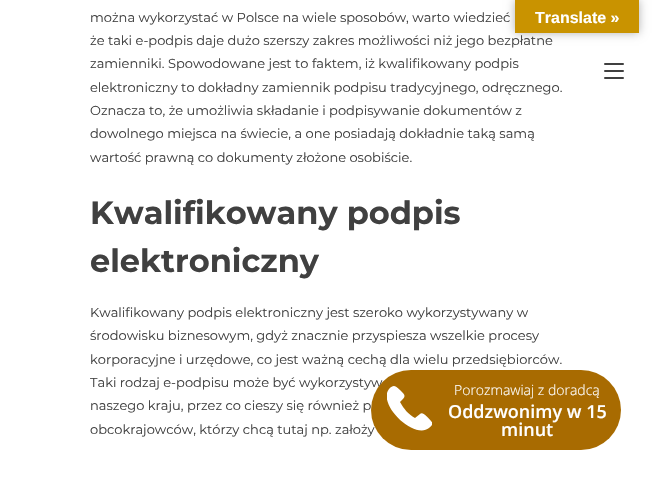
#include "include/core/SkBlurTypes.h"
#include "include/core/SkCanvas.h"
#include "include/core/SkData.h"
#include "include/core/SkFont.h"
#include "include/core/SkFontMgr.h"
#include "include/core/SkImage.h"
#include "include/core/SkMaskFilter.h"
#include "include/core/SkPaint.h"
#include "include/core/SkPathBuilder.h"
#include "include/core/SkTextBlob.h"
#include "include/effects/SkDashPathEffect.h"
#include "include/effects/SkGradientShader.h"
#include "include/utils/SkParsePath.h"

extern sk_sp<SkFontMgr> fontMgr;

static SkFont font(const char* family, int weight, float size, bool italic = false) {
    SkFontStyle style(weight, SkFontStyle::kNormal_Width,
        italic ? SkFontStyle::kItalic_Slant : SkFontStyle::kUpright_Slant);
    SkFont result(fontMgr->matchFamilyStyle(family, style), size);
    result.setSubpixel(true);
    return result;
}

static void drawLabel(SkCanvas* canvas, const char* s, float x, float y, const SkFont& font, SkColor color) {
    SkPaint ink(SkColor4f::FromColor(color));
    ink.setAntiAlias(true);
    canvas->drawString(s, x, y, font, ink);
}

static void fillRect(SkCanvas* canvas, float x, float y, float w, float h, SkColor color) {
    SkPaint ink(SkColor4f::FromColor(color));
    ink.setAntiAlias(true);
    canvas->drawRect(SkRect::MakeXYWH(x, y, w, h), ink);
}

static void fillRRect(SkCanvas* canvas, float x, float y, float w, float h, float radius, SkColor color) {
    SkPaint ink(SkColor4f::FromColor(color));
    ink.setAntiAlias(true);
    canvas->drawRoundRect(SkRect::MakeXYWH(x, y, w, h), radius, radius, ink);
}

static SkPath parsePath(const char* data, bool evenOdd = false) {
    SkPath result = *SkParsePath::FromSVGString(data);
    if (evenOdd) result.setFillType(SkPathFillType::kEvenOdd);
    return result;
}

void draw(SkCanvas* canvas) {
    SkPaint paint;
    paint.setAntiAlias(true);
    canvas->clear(0xFFFFFFFF);
    SkFont font1 = font("Montserrat", 400, 13);
    drawLabel(canvas, "można wykorzystać w Polsce na wiele sposobów, warto wiedzieć", 90, 22, font1, 0xFF404040);
    drawLabel(canvas, "że taki e-podpis daje dużo szerszy zakres możliwości niż jego bezpłatne", 90, 45, font1, 0xFF404040);
    drawLabel(canvas, "zamienniki. Spowodowane jest to faktem, iż kwalifikowany podpis", 90, 68, font1, 0xFF404040);
    drawLabel(canvas, "elektroniczny to dokładny zamiennik podpisu tradycyjnego, odręcznego.", 90, 92, font1, 0xFF404040);
    drawLabel(canvas, "Oznacza to, że umożliwia składanie i podpisywanie dokumentów z", 90, 115, font1, 0xFF404040);
    drawLabel(canvas, "dowolnego miejsca na świecie, a one posiadają dokładnie taką samą", 90, 138, font1, 0xFF404040);
    drawLabel(canvas, "wartość prawną co dokumenty złożone osobiście.", 90, 162, font1, 0xFF404040);
    SkFont font2 = font("Montserrat", 700, 32);
    drawLabel(canvas, "Kwalifikowany podpis", 90, 224, font2, 0xFF404040);
    drawLabel(canvas, "elektroniczny", 90, 272, font2, 0xFF404040);
    drawLabel(canvas, "Kwalifikowany podpis elektroniczny jest szeroko wykorzystywany w", 90, 317, font1, 0xFF404040);
    drawLabel(canvas, "środowisku biznesowym, gdyż znacznie przyspiesza wszelkie procesy", 90, 340, font1, 0xFF404040);
    drawLabel(canvas, "korporacyjne i urzędowe, co jest ważną cechą dla wielu przedsiębiorców.", 90, 364, font1, 0xFF404040);
    drawLabel(canvas, "Taki rodzaj e-podpisu może być wykorzystyw", 90, 387, font1, 0xFF404040);
    drawLabel(canvas, "naszego kraju, przez co cieszy się również p", 90, 410, font1, 0xFF404040);
    drawLabel(canvas, "obcokrajowców, którzy chcą tutaj np. założy", 90, 434, font1, 0xFF404040);
    fillRRect(canvas, 604, 63, 20, 2, 1, 0xFF404040);
    fillRRect(canvas, 604, 70, 20, 2, 1, 0xFF404040);
    fillRRect(canvas, 604, 77, 20, 2, 1, 0xFF404040);
    paint.setColor(0x4D000000);
    paint.setMaskFilter(SkMaskFilter::MakeBlur(kNormal_SkBlurStyle, 4.5f));
    canvas->drawRect(SkRect::MakeXYWH(515, 0, 124, 33), paint);
    paint.setMaskFilter(nullptr);
    fillRect(canvas, 515, 0, 124, 33, 0xFFC99300);
    SkFont font3 = font("Liberation Sans", 700, 16);
    drawLabel(canvas, "Translate »", 535, 23, font3, 0xFFFFFFFF);
    fillRRect(canvas, 371, 370, 250, 80, 40, 0xFFA86B01);
    canvas->save();
    canvas->clipRect(SkRect::MakeXYWH(387, 383, 45, 50));
    paint.setColor(0xFFFFFFFF);
    canvas->drawPath(parsePath("M431 421C429 419 423 411 420 414L415 418C408 414 404 409 400 402C406 396 406 396 400 390C395 386 394 384 389 389C377 404 414 440 429 428C431 426 434 424 431 421Z"), paint);
    canvas->restore();
    SkFont font4 = font("Open Sans", 300, 14);
    drawLabel(canvas, "Porozmawiaj z doradcą", 454, 395, font4, 0xFFFFFFFF);
    SkFont font5 = font("Open Sans", 600, 18);
    drawLabel(canvas, "Oddzwonimy w 15", 448, 418, font5, 0xFFFFFFFF);
    drawLabel(canvas, "minut", 501, 436, font5, 0xFFFFFFFF);
}
